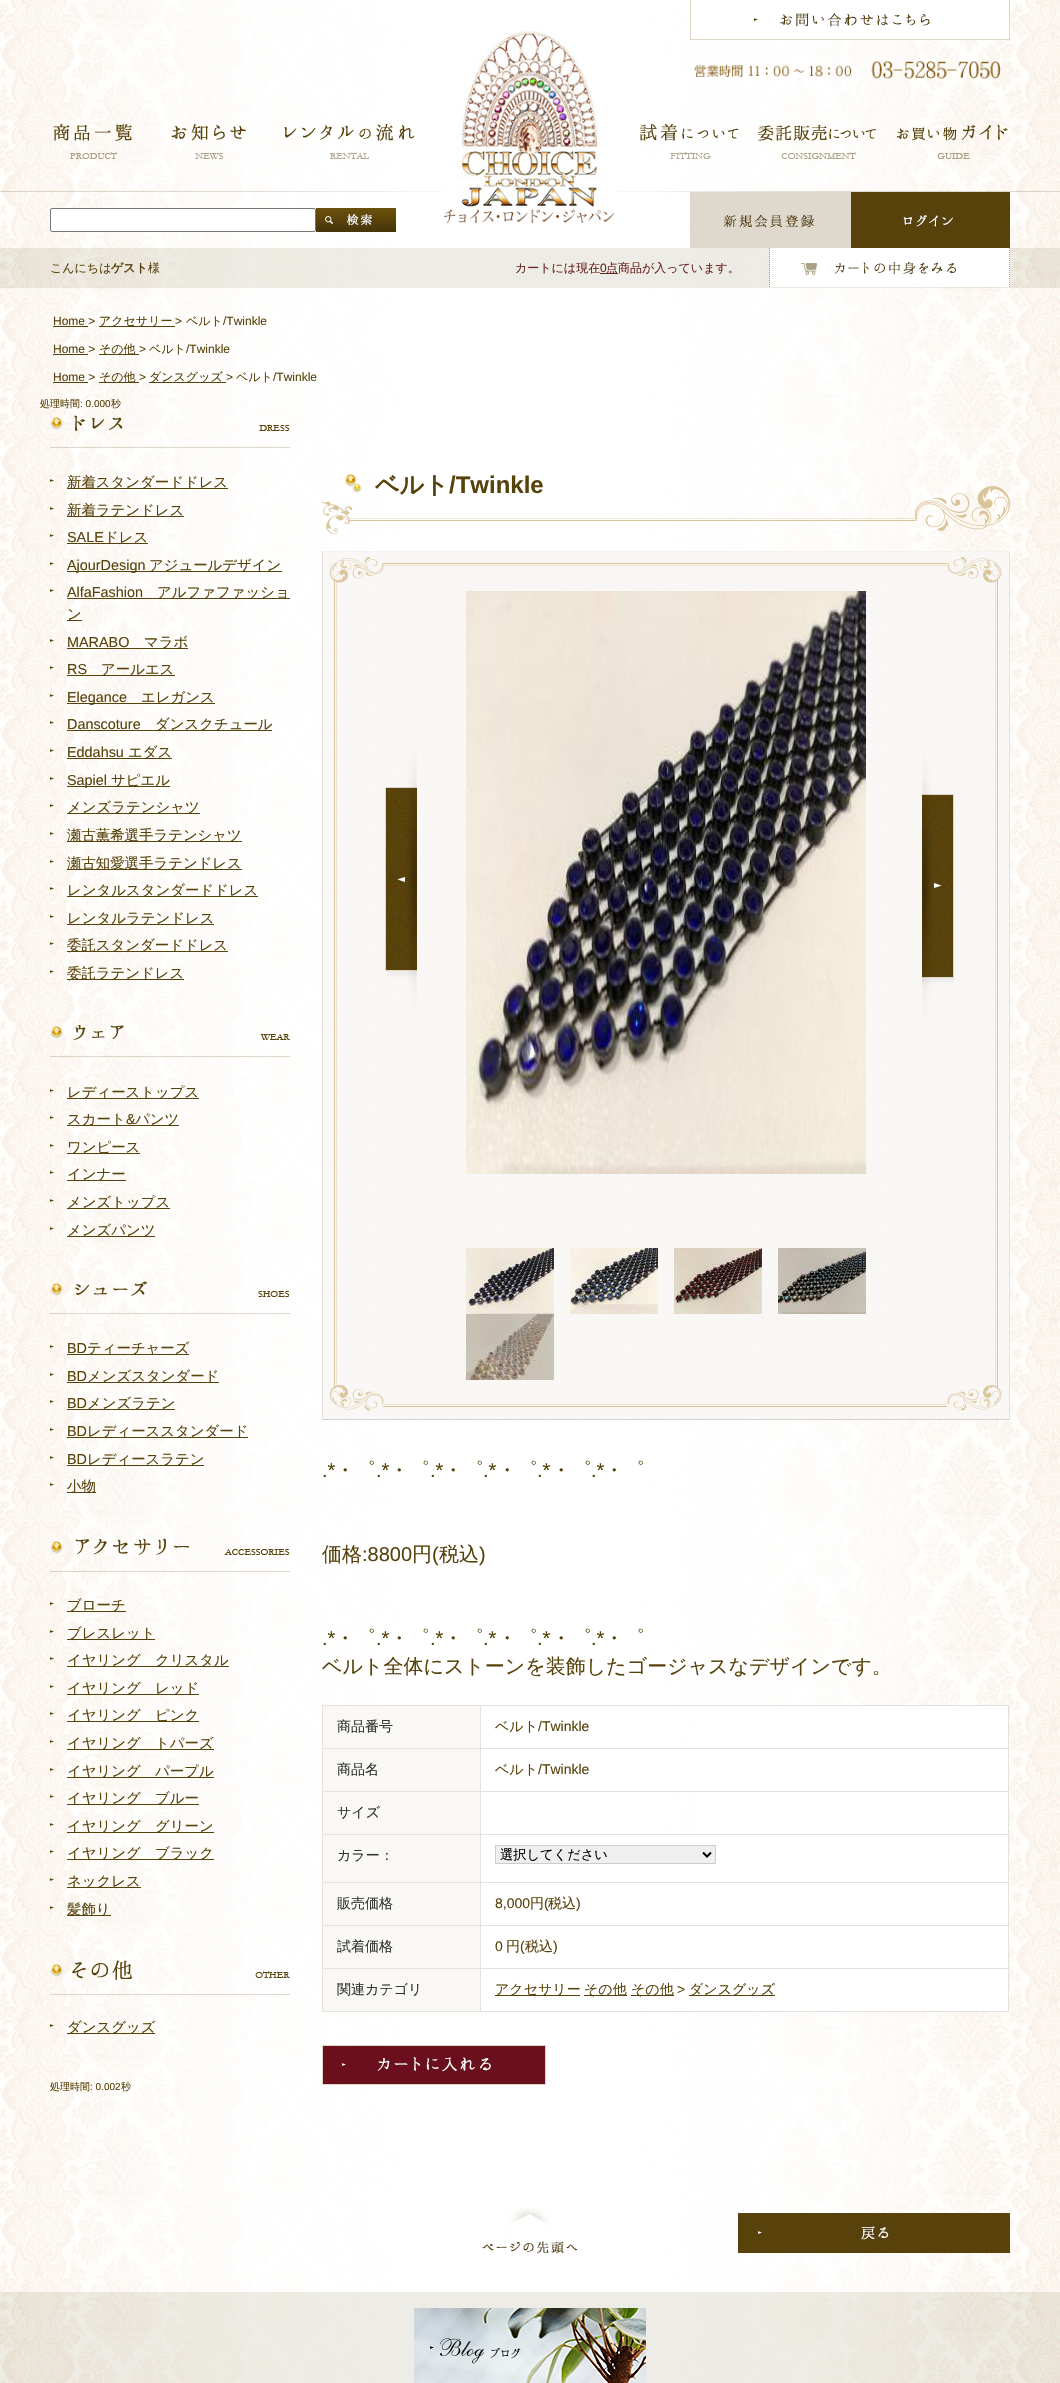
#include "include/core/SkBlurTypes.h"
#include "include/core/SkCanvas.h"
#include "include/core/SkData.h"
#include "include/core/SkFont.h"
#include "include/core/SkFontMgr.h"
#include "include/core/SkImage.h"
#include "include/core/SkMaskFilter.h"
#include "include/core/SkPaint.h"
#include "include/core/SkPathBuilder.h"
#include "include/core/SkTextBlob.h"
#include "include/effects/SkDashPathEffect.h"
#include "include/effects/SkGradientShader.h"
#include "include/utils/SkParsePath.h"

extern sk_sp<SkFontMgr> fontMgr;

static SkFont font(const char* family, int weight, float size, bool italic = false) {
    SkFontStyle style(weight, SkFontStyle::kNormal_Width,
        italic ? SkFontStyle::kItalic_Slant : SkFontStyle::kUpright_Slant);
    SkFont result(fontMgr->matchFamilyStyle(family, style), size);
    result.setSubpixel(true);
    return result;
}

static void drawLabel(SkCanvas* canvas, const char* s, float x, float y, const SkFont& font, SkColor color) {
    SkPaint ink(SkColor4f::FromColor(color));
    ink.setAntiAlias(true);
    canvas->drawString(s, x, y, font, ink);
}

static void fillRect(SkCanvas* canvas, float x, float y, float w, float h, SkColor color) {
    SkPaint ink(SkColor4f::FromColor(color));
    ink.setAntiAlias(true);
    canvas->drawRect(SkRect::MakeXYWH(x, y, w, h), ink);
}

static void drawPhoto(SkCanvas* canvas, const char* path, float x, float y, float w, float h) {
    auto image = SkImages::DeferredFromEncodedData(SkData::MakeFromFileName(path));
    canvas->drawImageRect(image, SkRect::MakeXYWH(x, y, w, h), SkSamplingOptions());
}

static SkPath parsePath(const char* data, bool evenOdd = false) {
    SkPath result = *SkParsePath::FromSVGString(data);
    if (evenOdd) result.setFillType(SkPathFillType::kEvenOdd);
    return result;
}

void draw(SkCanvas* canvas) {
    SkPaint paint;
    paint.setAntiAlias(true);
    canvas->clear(0xFFFFFFFF);
    drawPhoto(canvas, "assets/img1.png", 0, 0, 1060, 2383);
    drawPhoto(canvas, "assets/img2.png", 690, 0, 320, 40);
    drawPhoto(canvas, "assets/img11.png", 0, 191, 1060, 1);
    drawPhoto(canvas, "assets/img3.png", 444, 31, 170, 193);
    drawPhoto(canvas, "assets/img4.png", 694, 61, 307, 18);
    drawPhoto(canvas, "assets/img5.png", 53, 124, 79, 35);
    drawPhoto(canvas, "assets/img6.png", 171, 124, 75, 35);
    drawPhoto(canvas, "assets/img7.png", 284, 124, 131, 35);
    drawPhoto(canvas, "assets/img8.png", 640, 124, 99, 35);
    drawPhoto(canvas, "assets/img9.png", 758, 125, 118, 34);
    drawPhoto(canvas, "assets/img10.png", 896, 124, 112, 35);
    paint.setColor(0xFFFFFFFF);
    canvas->drawRoundRect(SkRect::MakeXYWH(50.5f, 208.5f, 265, 23), 1.5f, 1.5f, paint);
    paint.setStroke(true);
    paint.setStrokeWidth(1);
    paint.setColor(0xFF767676);
    canvas->drawRoundRect(SkRect::MakeXYWH(50.5f, 208.5f, 265, 23), 1.5f, 1.5f, paint);
    drawPhoto(canvas, "assets/img12.png", 316, 208, 80, 24);
    drawPhoto(canvas, "assets/img13.png", 690, 192, 161, 56);
    drawPhoto(canvas, "assets/img14.png", 851, 192, 159, 56);
    fillRect(canvas, 0, 248, 1060, 40, 0x1A58450A);
    SkFont font1 = font("WenQuanYi Zen Hei", 500, 12);
    drawLabel(canvas, "こんにちは", 50, 272, font1, 0xFF58420B);
    SkFont font2 = font("WenQuanYi Zen Hei", 700, 12);
    drawLabel(canvas, "ゲスト", 111, 272, font2, 0xFF58420B);
    drawLabel(canvas, "様", 148, 272, font1, 0xFF58420B);
    drawLabel(canvas, "カートには現在", 515, 272, font1, 0xFF6A2220);
    SkFont font3 = font("Liberation Sans", 400, 12);
    drawLabel(canvas, "0", 600, 272, font3, 0xFF6A2220);
    fillRect(canvas, 600, 273, 18, 1, 0xFF6A2220);
    drawLabel(canvas, "点商品が入っています。", 606, 272, font1, 0xFF6A2220);
    drawPhoto(canvas, "assets/img15.png", 769, 248, 241, 39);
    drawLabel(canvas, "Home >", 53, 325, font3, 0xFF58420B);
    fillRect(canvas, 53, 326, 35, 1, 0xFF58420B);
    fillRect(canvas, 99, 326, 76, 1, 0xFF58420B);
    drawLabel(canvas, "アクセサリー", 99, 325, font1, 0xFF58420B);
    drawLabel(canvas, ">", 175, 325, font3, 0xFF58420B);
    drawLabel(canvas, "ベルト", 186, 325, font1, 0xFF58420B);
    drawLabel(canvas, "/Twinkle", 223, 325, font3, 0xFF58420B);
    drawLabel(canvas, "Home >", 53, 353, font3, 0xFF58420B);
    fillRect(canvas, 53, 354, 35, 1, 0xFF58420B);
    fillRect(canvas, 99, 354, 36, 1, 0xFF58420B);
    drawLabel(canvas, "その他", 99, 353, font1, 0xFF58420B);
    fillRect(canvas, 135, 354, 4, 1, 0xFF58420B);
    drawLabel(canvas, ">", 139, 353, font3, 0xFF58420B);
    drawLabel(canvas, "ベルト", 149, 353, font1, 0xFF58420B);
    drawLabel(canvas, "/Twinkle", 186, 353, font3, 0xFF58420B);
    drawLabel(canvas, "Home >", 53, 381, font3, 0xFF58420B);
    fillRect(canvas, 53, 382, 35, 1, 0xFF58420B);
    fillRect(canvas, 99, 382, 36, 1, 0xFF58420B);
    drawLabel(canvas, "その他", 99, 381, font1, 0xFF58420B);
    fillRect(canvas, 135, 382, 4, 1, 0xFF58420B);
    drawLabel(canvas, ">", 139, 381, font3, 0xFF58420B);
    fillRect(canvas, 149, 382, 77, 1, 0xFF58420B);
    drawLabel(canvas, "ダンスグッズ", 149, 381, font1, 0xFF58420B);
    drawLabel(canvas, ">", 226, 381, font3, 0xFF58420B);
    drawLabel(canvas, "ベルト", 236, 381, font1, 0xFF58420B);
    drawLabel(canvas, "/Twinkle", 273, 381, font3, 0xFF58420B);
    SkFont font4 = font("WenQuanYi Zen Hei", 500, 10);
    drawLabel(canvas, "処理時間", 40, 407, font4, 0xFF58420B);
    SkFont font5 = font("Liberation Sans", 400, 10);
    drawLabel(canvas, ": 0.000", 80, 407, font5, 0xFF58420B);
    drawLabel(canvas, "秒", 111, 407, font4, 0xFF58420B);
    drawPhoto(canvas, "assets/img16.png", 50, 415, 240, 33);
    drawPhoto(canvas, "assets/img17.png", 50, 479, 4, 3);
    fillRect(canvas, 67, 488, 161, 1, 0xFF58420B);
    SkFont font6 = font("WenQuanYi Zen Hei", 500, 14.4f);
    drawLabel(canvas, "新着スタンダードドレス", 67, 487, font6, 0xFF58420B);
    drawPhoto(canvas, "assets/img18.png", 50, 507, 4, 3);
    fillRect(canvas, 67, 516, 117, 1, 0xFF58420B);
    drawLabel(canvas, "新着ラテンドレス", 67, 515, font6, 0xFF58420B);
    drawPhoto(canvas, "assets/img19.png", 50, 534, 4, 3);
    SkFont font7 = font("Liberation Sans", 400, 14.4f);
    drawLabel(canvas, "SALE", 67, 542, font7, 0xFF58420B);
    fillRect(canvas, 67, 543, 81, 1, 0xFF58420B);
    drawLabel(canvas, "ドレス", 104, 542, font6, 0xFF58420B);
    drawPhoto(canvas, "assets/img20.png", 50, 562, 4, 3);
    fillRect(canvas, 67, 571, 215, 1, 0xFF58420B);
    drawLabel(canvas, "AjourDesign", 67, 570, font7, 0xFF58420B);
    drawLabel(canvas, "アジュールデザイン", 149, 570, font6, 0xFF58420B);
    drawPhoto(canvas, "assets/img21.png", 50, 589, 4, 3);
    drawLabel(canvas, "AlfaFashion", 67, 597, font7, 0xFF58420B);
    fillRect(canvas, 67, 598, 223, 1, 0xFF58420B);
    drawLabel(canvas, "アルファファッショ", 157, 597, font6, 0xFF58420B);
    drawLabel(canvas, "ン", 67, 619, font6, 0xFF58420B);
    fillRect(canvas, 67, 620, 15, 1, 0xFF58420B);
    drawPhoto(canvas, "assets/img22.png", 50, 639, 4, 3);
    drawLabel(canvas, "MARABO", 67, 647, font7, 0xFF58420B);
    fillRect(canvas, 67, 648, 121, 1, 0xFF58420B);
    drawLabel(canvas, "マラボ", 144, 647, font6, 0xFF58420B);
    drawPhoto(canvas, "assets/img23.png", 50, 666, 4, 3);
    drawLabel(canvas, "RS", 67, 674, font7, 0xFF58420B);
    fillRect(canvas, 67, 675, 108, 1, 0xFF58420B);
    drawLabel(canvas, "アールエス", 101, 674, font6, 0xFF58420B);
    drawPhoto(canvas, "assets/img24.png", 50, 694, 4, 3);
    fillRect(canvas, 67, 703, 148, 1, 0xFF58420B);
    drawLabel(canvas, "Elegance", 67, 702, font7, 0xFF58420B);
    drawLabel(canvas, "エレガンス", 141, 702, font6, 0xFF58420B);
    drawPhoto(canvas, "assets/img25.png", 50, 721, 4, 3);
    drawLabel(canvas, "Danscoture", 67, 729, font7, 0xFF58420B);
    fillRect(canvas, 67, 730, 205, 1, 0xFF58420B);
    drawLabel(canvas, "ダンスクチュール", 155, 729, font6, 0xFF58420B);
    drawPhoto(canvas, "assets/img26.png", 50, 749, 4, 3);
    drawLabel(canvas, "Eddahsu", 67, 757, font7, 0xFF58420B);
    fillRect(canvas, 67, 758, 105, 1, 0xFF58420B);
    drawLabel(canvas, "エダス", 128, 757, font6, 0xFF58420B);
    drawPhoto(canvas, "assets/img27.png", 50, 777, 4, 3);
    fillRect(canvas, 67, 786, 103, 1, 0xFF58420B);
    drawLabel(canvas, "Sapiel", 67, 785, font7, 0xFF58420B);
    drawLabel(canvas, "サピエル", 111, 785, font6, 0xFF58420B);
    drawPhoto(canvas, "assets/img28.png", 50, 804, 4, 3);
    fillRect(canvas, 67, 813, 133, 1, 0xFF58420B);
    drawLabel(canvas, "メンズラテンシャツ", 67, 812, font6, 0xFF58420B);
    drawPhoto(canvas, "assets/img29.png", 50, 832, 4, 3);
    fillRect(canvas, 67, 841, 175, 1, 0xFF58420B);
    drawLabel(canvas, "瀬古薫希選手ラテンシャツ", 67, 840, font6, 0xFF58420B);
    drawPhoto(canvas, "assets/img30.png", 50, 860, 4, 3);
    fillRect(canvas, 67, 869, 175, 1, 0xFF58420B);
    drawLabel(canvas, "瀬古知愛選手ラテンドレス", 67, 868, font6, 0xFF58420B);
    drawPhoto(canvas, "assets/img31.png", 50, 887, 4, 3);
    fillRect(canvas, 67, 896, 191, 1, 0xFF58420B);
    drawLabel(canvas, "レンタルスタンダードドレス", 67, 895, font6, 0xFF58420B);
    drawPhoto(canvas, "assets/img32.png", 50, 915, 4, 3);
    fillRect(canvas, 67, 924, 147, 1, 0xFF58420B);
    drawLabel(canvas, "レンタルラテンドレス", 67, 923, font6, 0xFF58420B);
    drawPhoto(canvas, "assets/img33.png", 50, 942, 4, 3);
    fillRect(canvas, 67, 951, 161, 1, 0xFF58420B);
    drawLabel(canvas, "委託スタンダードドレス", 67, 950, font6, 0xFF58420B);
    drawPhoto(canvas, "assets/img34.png", 50, 970, 4, 3);
    fillRect(canvas, 67, 979, 117, 1, 0xFF58420B);
    drawLabel(canvas, "委託ラテンドレス", 67, 978, font6, 0xFF58420B);
    drawPhoto(canvas, "assets/img35.png", 50, 1025, 240, 32);
    drawPhoto(canvas, "assets/img36.png", 50, 1089, 4, 3);
    fillRect(canvas, 67, 1098, 132, 1, 0xFF58420B);
    drawLabel(canvas, "レディーストップス", 67, 1097, font6, 0xFF58420B);
    drawPhoto(canvas, "assets/img37.png", 50, 1116, 4, 3);
    fillRect(canvas, 67, 1125, 112, 1, 0xFF58420B);
    drawLabel(canvas, "スカート", 67, 1124, font6, 0xFF58420B);
    drawLabel(canvas, "&", 126, 1124, font7, 0xFF58420B);
    drawLabel(canvas, "パンツ", 135, 1124, font6, 0xFF58420B);
    drawPhoto(canvas, "assets/img38.png", 50, 1144, 4, 3);
    fillRect(canvas, 67, 1153, 73, 1, 0xFF58420B);
    drawLabel(canvas, "ワンピース", 67, 1152, font6, 0xFF58420B);
    drawPhoto(canvas, "assets/img39.png", 50, 1171, 4, 3);
    fillRect(canvas, 67, 1180, 59, 1, 0xFF58420B);
    drawLabel(canvas, "インナー", 67, 1179, font6, 0xFF58420B);
    drawPhoto(canvas, "assets/img40.png", 50, 1199, 4, 3);
    fillRect(canvas, 67, 1208, 103, 1, 0xFF58420B);
    drawLabel(canvas, "メンズトップス", 67, 1207, font6, 0xFF58420B);
    drawPhoto(canvas, "assets/img41.png", 50, 1227, 4, 3);
    fillRect(canvas, 67, 1236, 88, 1, 0xFF58420B);
    drawLabel(canvas, "メンズパンツ", 67, 1235, font6, 0xFF58420B);
    drawPhoto(canvas, "assets/img42.png", 50, 1281, 240, 33);
    drawPhoto(canvas, "assets/img43.png", 50, 1345, 4, 3);
    drawLabel(canvas, "BD", 67, 1353, font7, 0xFF58420B);
    fillRect(canvas, 67, 1354, 122, 1, 0xFF58420B);
    drawLabel(canvas, "ティーチャーズ", 87, 1353, font6, 0xFF58420B);
    drawPhoto(canvas, "assets/img44.png", 50, 1373, 4, 3);
    drawLabel(canvas, "BD", 67, 1381, font7, 0xFF58420B);
    fillRect(canvas, 67, 1382, 152, 1, 0xFF58420B);
    drawLabel(canvas, "メンズスタンダード", 87, 1381, font6, 0xFF58420B);
    drawPhoto(canvas, "assets/img45.png", 50, 1400, 4, 3);
    drawLabel(canvas, "BD", 67, 1408, font7, 0xFF58420B);
    fillRect(canvas, 67, 1409, 108, 1, 0xFF58420B);
    drawLabel(canvas, "メンズラテン", 87, 1408, font6, 0xFF58420B);
    drawPhoto(canvas, "assets/img46.png", 50, 1428, 4, 3);
    drawLabel(canvas, "BD", 67, 1436, font7, 0xFF58420B);
    fillRect(canvas, 67, 1437, 181, 1, 0xFF58420B);
    drawLabel(canvas, "レディーススタンダード", 87, 1436, font6, 0xFF58420B);
    drawPhoto(canvas, "assets/img47.png", 50, 1456, 4, 3);
    drawLabel(canvas, "BD", 67, 1464, font7, 0xFF58420B);
    fillRect(canvas, 67, 1465, 137, 1, 0xFF58420B);
    drawLabel(canvas, "レディースラテン", 87, 1464, font6, 0xFF58420B);
    drawPhoto(canvas, "assets/img48.png", 50, 1483, 4, 3);
    fillRect(canvas, 67, 1492, 29, 1, 0xFF58420B);
    drawLabel(canvas, "小物", 67, 1491, font6, 0xFF58420B);
    drawPhoto(canvas, "assets/img49.png", 50, 1538, 240, 34);
    drawPhoto(canvas, "assets/img50.png", 50, 1602, 4, 3);
    fillRect(canvas, 67, 1611, 59, 1, 0xFF58420B);
    drawLabel(canvas, "ブローチ", 67, 1610, font6, 0xFF58420B);
    drawPhoto(canvas, "assets/img51.png", 50, 1630, 4, 3);
    fillRect(canvas, 67, 1639, 88, 1, 0xFF58420B);
    drawLabel(canvas, "ブレスレット", 67, 1638, font6, 0xFF58420B);
    drawPhoto(canvas, "assets/img52.png", 50, 1657, 4, 3);
    fillRect(canvas, 67, 1666, 162, 1, 0xFF58420B);
    drawLabel(canvas, "イヤリング　クリスタル", 67, 1665, font6, 0xFF58420B);
    drawPhoto(canvas, "assets/img53.png", 50, 1685, 4, 3);
    fillRect(canvas, 67, 1694, 132, 1, 0xFF58420B);
    drawLabel(canvas, "イヤリング　レッド", 67, 1693, font6, 0xFF58420B);
    drawPhoto(canvas, "assets/img54.png", 50, 1712, 4, 3);
    fillRect(canvas, 67, 1721, 132, 1, 0xFF58420B);
    drawLabel(canvas, "イヤリング　ピンク", 67, 1720, font6, 0xFF58420B);
    drawPhoto(canvas, "assets/img55.png", 50, 1740, 4, 3);
    fillRect(canvas, 67, 1749, 147, 1, 0xFF58420B);
    drawLabel(canvas, "イヤリング　トパーズ", 67, 1748, font6, 0xFF58420B);
    drawPhoto(canvas, "assets/img56.png", 50, 1768, 4, 3);
    fillRect(canvas, 67, 1777, 147, 1, 0xFF58420B);
    drawLabel(canvas, "イヤリング　パープル", 67, 1776, font6, 0xFF58420B);
    drawPhoto(canvas, "assets/img57.png", 50, 1795, 4, 3);
    fillRect(canvas, 67, 1804, 132, 1, 0xFF58420B);
    drawLabel(canvas, "イヤリング　ブルー", 67, 1803, font6, 0xFF58420B);
    drawPhoto(canvas, "assets/img58.png", 50, 1823, 4, 3);
    fillRect(canvas, 67, 1832, 147, 1, 0xFF58420B);
    drawLabel(canvas, "イヤリング　グリーン", 67, 1831, font6, 0xFF58420B);
    drawPhoto(canvas, "assets/img59.png", 50, 1850, 4, 3);
    fillRect(canvas, 67, 1859, 147, 1, 0xFF58420B);
    drawLabel(canvas, "イヤリング　ブラック", 67, 1858, font6, 0xFF58420B);
    drawPhoto(canvas, "assets/img60.png", 50, 1878, 4, 3);
    fillRect(canvas, 67, 1887, 74, 1, 0xFF58420B);
    drawLabel(canvas, "ネックレス", 67, 1886, font6, 0xFF58420B);
    drawPhoto(canvas, "assets/img61.png", 50, 1906, 4, 3);
    fillRect(canvas, 67, 1915, 44, 1, 0xFF58420B);
    drawLabel(canvas, "髪飾り", 67, 1914, font6, 0xFF58420B);
    drawPhoto(canvas, "assets/img62.png", 50, 1960, 240, 35);
    drawPhoto(canvas, "assets/img63.png", 50, 2024, 4, 3);
    fillRect(canvas, 67, 2033, 88, 1, 0xFF58420B);
    drawLabel(canvas, "ダンスグッズ", 67, 2032, font6, 0xFF58420B);
    drawLabel(canvas, "処理時間", 50, 2090, font4, 0xFF58420B);
    drawLabel(canvas, ": 0.002", 90, 2090, font5, 0xFF58420B);
    drawLabel(canvas, "秒", 121, 2090, font4, 0xFF58420B);
    drawPhoto(canvas, "assets/img64.png", 322, 486, 688, 48);
    drawPhoto(canvas, "assets/img65.png", 345, 474, 17, 19);
    SkFont font8 = font("WenQuanYi Zen Hei", 700, 24);
    drawLabel(canvas, "ベルト", 375, 493, font8, 0xFF58420B);
    SkFont font9 = font("Liberation Sans", 700, 24);
    drawLabel(canvas, "/Twinkle", 449, 493, font9, 0xFF58420B);
    drawPhoto(canvas, "assets/img66.png", 322, 551, 688, 32);
    drawPhoto(canvas, "assets/img67.png", 322, 1385, 688, 35);
    drawPhoto(canvas, "assets/img68.png", 322, 583, 688, 802);
    drawPhoto(canvas, "assets/img69.png", 466, 591, 400, 583);
    drawPhoto(canvas, "assets/img70.png", 385, 746, 32, 279);
    drawPhoto(canvas, "assets/img71.png", 922, 753, 32, 272);
    drawPhoto(canvas, "assets/img72.png", 466, 1248, 88, 66);
    drawPhoto(canvas, "assets/img73.png", 570, 1248, 88, 66);
    drawPhoto(canvas, "assets/img74.png", 674, 1248, 88, 66);
    drawPhoto(canvas, "assets/img75.png", 778, 1248, 88, 66);
    drawPhoto(canvas, "assets/img76.png", 466, 1314, 88, 66);
    SkFont font10 = font("Liberation Sans", 400, 20);
    drawLabel(canvas, ".*", 322, 1477, font10, 0xFF58420B);
    SkFont font11 = font("WenQuanYi Zen Hei", 500, 20);
    drawLabel(canvas, "・゜", 335, 1477, font11, 0xFF58420B);
    drawLabel(canvas, ".*", 376, 1477, font10, 0xFF58420B);
    drawLabel(canvas, "・゜", 389, 1477, font11, 0xFF58420B);
    drawLabel(canvas, ".*", 430, 1477, font10, 0xFF58420B);
    drawLabel(canvas, "・゜", 443, 1477, font11, 0xFF58420B);
    drawLabel(canvas, ".*", 483, 1477, font10, 0xFF58420B);
    drawLabel(canvas, "・゜", 497, 1477, font11, 0xFF58420B);
    drawLabel(canvas, ".*", 537, 1477, font10, 0xFF58420B);
    drawLabel(canvas, "・゜", 551, 1477, font11, 0xFF58420B);
    drawLabel(canvas, ".*", 591, 1477, font10, 0xFF58420B);
    drawLabel(canvas, "・゜", 604, 1477, font11, 0xFF58420B);
    drawLabel(canvas, "価格", 322, 1561, font11, 0xFF58420B);
    drawLabel(canvas, ":8800", 362, 1561, font10, 0xFF58420B);
    drawLabel(canvas, "円", 412, 1561, font11, 0xFF58420B);
    drawLabel(canvas, "(", 432, 1561, font10, 0xFF58420B);
    drawLabel(canvas, "税込", 439, 1561, font11, 0xFF58420B);
    drawLabel(canvas, ")", 479, 1561, font10, 0xFF58420B);
    drawLabel(canvas, ".*", 322, 1645, font10, 0xFF58420B);
    drawLabel(canvas, "・゜", 335, 1645, font11, 0xFF58420B);
    drawLabel(canvas, ".*", 376, 1645, font10, 0xFF58420B);
    drawLabel(canvas, "・゜", 389, 1645, font11, 0xFF58420B);
    drawLabel(canvas, ".*", 430, 1645, font10, 0xFF58420B);
    drawLabel(canvas, "・゜", 443, 1645, font11, 0xFF58420B);
    drawLabel(canvas, ".*", 483, 1645, font10, 0xFF58420B);
    drawLabel(canvas, "・゜", 497, 1645, font11, 0xFF58420B);
    drawLabel(canvas, ".*", 537, 1645, font10, 0xFF58420B);
    drawLabel(canvas, "・゜", 551, 1645, font11, 0xFF58420B);
    drawLabel(canvas, ".*", 591, 1645, font10, 0xFF58420B);
    drawLabel(canvas, "・゜", 604, 1645, font11, 0xFF58420B);
    drawLabel(canvas, "ベルト全体にストーンを装飾したゴージャスなデザインです。", 322, 1673, font11, 0xFF58420B);
    fillRect(canvas, 322, 1705, 687, 1, 0xFFE5E1DD);
    fillRect(canvas, 322, 1705, 1, 307, 0xFFE5E1DD);
    fillRect(canvas, 323, 1706, 157, 42, 0xFFF9F8F4);
    SkFont font12 = font("WenQuanYi Zen Hei", 500, 14);
    drawLabel(canvas, "商品番号", 337, 1731, font12, 0xFF333333);
    fillRect(canvas, 691, 1706, 317, 42, 0xFFFFFFFF);
    fillRect(canvas, 480, 1748, 529, 1, 0xFFE5E1DD);
    fillRect(canvas, 480, 1791, 529, 1, 0xFFE5E1DD);
    fillRect(canvas, 480, 1834, 529, 1, 0xFFE5E1DD);
    fillRect(canvas, 480, 1882, 529, 1, 0xFFE5E1DD);
    fillRect(canvas, 480, 1925, 529, 1, 0xFFE5E1DD);
    fillRect(canvas, 480, 1968, 529, 1, 0xFFE5E1DD);
    fillRect(canvas, 1008, 1968, 1, 44, 0xFFE5E1DD);
    fillRect(canvas, 480, 2011, 529, 1, 0xFFE5E1DD);
    fillRect(canvas, 480, 1968, 1, 44, 0xFFE5E1DD);
    fillRect(canvas, 322, 1968, 159, 1, 0xFFE5E1DD);
    fillRect(canvas, 480, 1925, 1, 44, 0xFFE5E1DD);
    fillRect(canvas, 322, 1925, 159, 1, 0xFFE5E1DD);
    fillRect(canvas, 480, 1882, 1, 44, 0xFFE5E1DD);
    fillRect(canvas, 322, 1882, 159, 1, 0xFFE5E1DD);
    fillRect(canvas, 480, 1834, 1, 49, 0xFFE5E1DD);
    fillRect(canvas, 322, 1834, 159, 1, 0xFFE5E1DD);
    fillRect(canvas, 480, 1791, 1, 44, 0xFFE5E1DD);
    fillRect(canvas, 322, 1791, 159, 1, 0xFFE5E1DD);
    fillRect(canvas, 480, 1748, 1, 44, 0xFFE5E1DD);
    fillRect(canvas, 322, 1748, 159, 1, 0xFFE5E1DD);
    fillRect(canvas, 480, 1705, 1, 44, 0xFFE5E1DD);
    drawLabel(canvas, "ベルト", 495, 1731, font12, 0xFF58420B);
    SkFont font13 = font("Liberation Sans", 400, 14);
    drawLabel(canvas, "/Twinkle", 538, 1731, font13, 0xFF58420B);
    fillRect(canvas, 323, 1749, 157, 42, 0xFFF9F8F4);
    drawLabel(canvas, "商品名", 337, 1774, font12, 0xFF333333);
    fillRect(canvas, 645, 1749, 363, 42, 0xFFFFFFFF);
    fillRect(canvas, 1008, 1925, 1, 44, 0xFFE5E1DD);
    fillRect(canvas, 1008, 1882, 1, 44, 0xFFE5E1DD);
    fillRect(canvas, 1008, 1834, 1, 49, 0xFFE5E1DD);
    fillRect(canvas, 1008, 1791, 1, 44, 0xFFE5E1DD);
    fillRect(canvas, 1008, 1705, 1, 87, 0xFFE5E1DD);
    drawLabel(canvas, "ベルト", 495, 1774, font12, 0xFF58420B);
    drawLabel(canvas, "/Twinkle", 538, 1774, font13, 0xFF58420B);
    fillRect(canvas, 323, 1792, 157, 42, 0xFFF9F8F4);
    drawLabel(canvas, "サイズ", 337, 1817, font12, 0xFF333333);
    fillRect(canvas, 698, 1792, 310, 42, 0xFFFFFFFF);
    fillRect(canvas, 323, 1835, 157, 47, 0xFFF9F8F4);
    drawLabel(canvas, "カラー：", 337, 1860, font12, 0xFF333333);
    fillRect(canvas, 667, 1835, 341, 47, 0xFFFFFFFF);
    paint.setStroke(false);
    paint.setColor(0xFFEFEFEF);
    canvas->drawRect(SkRect::MakeXYWH(495.5f, 1845.5f, 220, 18), paint);
    paint.setStroke(true);
    paint.setColor(0xFFCCCCCC);
    canvas->drawRect(SkRect::MakeXYWH(495.5f, 1845.5f, 220, 18), paint);
    paint.setStrokeWidth(2);
    paint.setColor(0xFF000000);
    canvas->drawPath(parsePath("M703 1852.5L707 1856.5L711 1852.5"), paint);
    SkFont font14 = font("WenQuanYi Zen Hei", 500, 13.25f);
    drawLabel(canvas, "選択してください", 500, 1859, font14, 0xFF000000);
    fillRect(canvas, 323, 1883, 157, 42, 0xFFF9F8F4);
    drawLabel(canvas, "販売価格", 337, 1908, font12, 0xFF333333);
    fillRect(canvas, 641, 1883, 367, 42, 0xFFFFFFFF);
    drawLabel(canvas, "8,000", 495, 1908, font13, 0xFF58420B);
    drawLabel(canvas, "円", 530, 1908, font12, 0xFF58420B);
    drawLabel(canvas, "(", 544, 1908, font13, 0xFF58420B);
    drawLabel(canvas, "税込", 548, 1908, font12, 0xFF58420B);
    drawLabel(canvas, ")", 576, 1908, font13, 0xFF58420B);
    fillRect(canvas, 323, 1926, 157, 42, 0xFFF9F8F4);
    drawLabel(canvas, "試着価格", 337, 1951, font12, 0xFF333333);
    fillRect(canvas, 671, 1926, 337, 42, 0xFFFFFFFF);
    drawLabel(canvas, "0", 495, 1951, font13, 0xFF58420B);
    drawLabel(canvas, "円", 506, 1951, font12, 0xFF58420B);
    drawLabel(canvas, "(", 520, 1951, font13, 0xFF58420B);
    drawLabel(canvas, "税込", 525, 1951, font12, 0xFF58420B);
    drawLabel(canvas, ")", 553, 1951, font13, 0xFF58420B);
    fillRect(canvas, 323, 1969, 157, 42, 0xFFF9F8F4);
    fillRect(canvas, 322, 2011, 159, 1, 0xFFE5E1DD);
    drawLabel(canvas, "関連カテゴリ", 337, 1994, font12, 0xFF333333);
    fillRect(canvas, 681, 1969, 327, 42, 0xFFFFFFFF);
    fillRect(canvas, 495, 1995, 85, 1, 0xFF58420B);
    drawLabel(canvas, "アクセサリー", 495, 1994, font12, 0xFF58420B);
    fillRect(canvas, 584, 1995, 43, 1, 0xFF58420B);
    drawLabel(canvas, "その他", 584, 1994, font12, 0xFF58420B);
    fillRect(canvas, 631, 1995, 43, 1, 0xFF58420B);
    drawLabel(canvas, "その他", 631, 1994, font12, 0xFF58420B);
    drawLabel(canvas, ">", 677, 1994, font13, 0xFF58420B);
    fillRect(canvas, 689, 1995, 86, 1, 0xFF58420B);
    drawLabel(canvas, "ダンスグッズ", 689, 1994, font12, 0xFF58420B);
    drawPhoto(canvas, "assets/img77.png", 322, 2045, 224, 40);
    drawPhoto(canvas, "assets/img78.png", 482, 2208, 96, 46);
    drawPhoto(canvas, "assets/img79.png", 738, 2213, 272, 40);
    fillRect(canvas, 0, 2292, 1060, 91, 0x1A58450A);
    drawPhoto(canvas, "assets/img80.png", 414, 2308, 232, 75);
}
